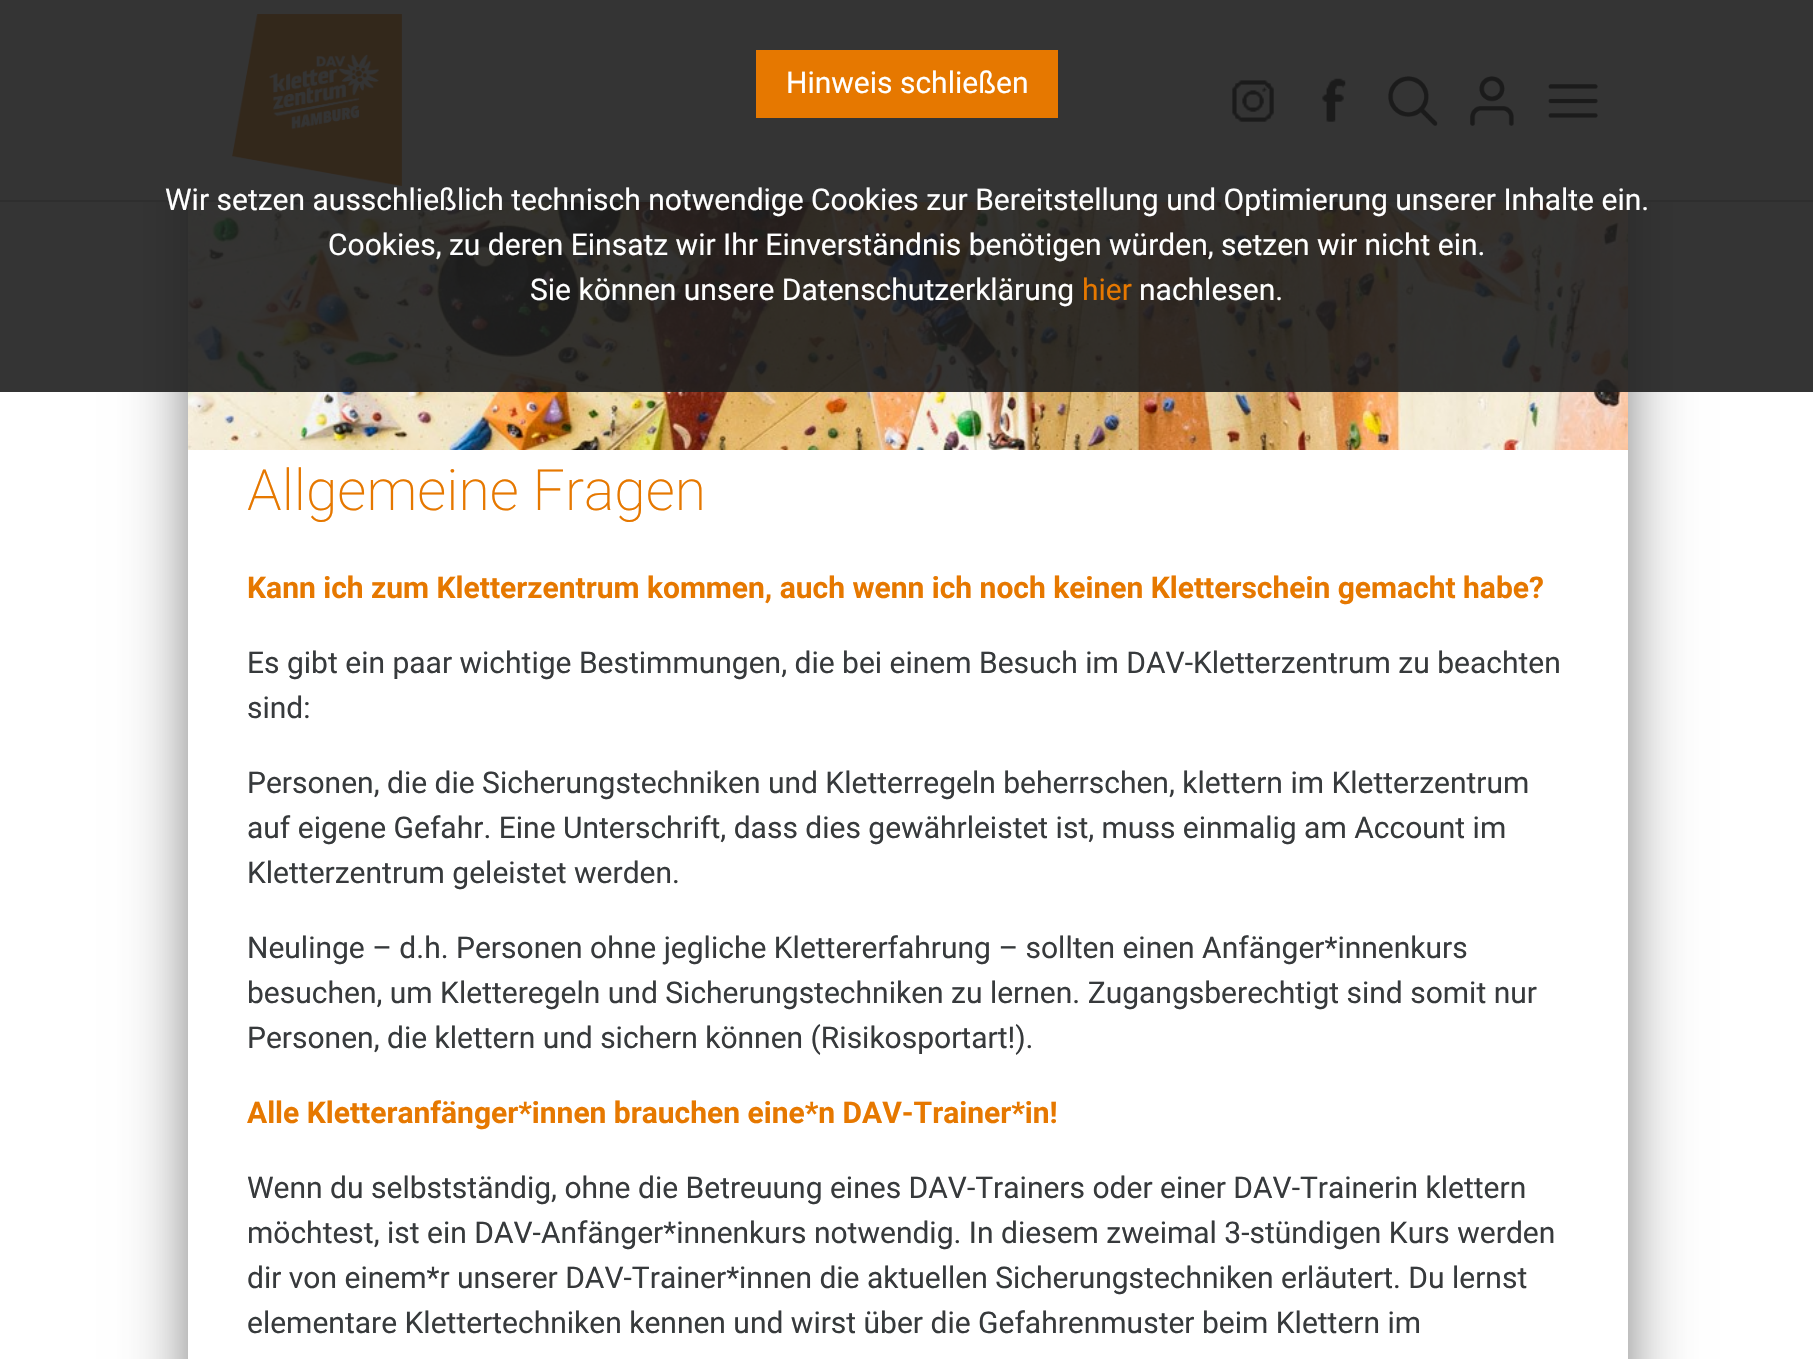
#include "include/core/SkBlurTypes.h"
#include "include/core/SkCanvas.h"
#include "include/core/SkData.h"
#include "include/core/SkFont.h"
#include "include/core/SkFontMgr.h"
#include "include/core/SkImage.h"
#include "include/core/SkMaskFilter.h"
#include "include/core/SkPaint.h"
#include "include/core/SkPathBuilder.h"
#include "include/core/SkTextBlob.h"
#include "include/effects/SkDashPathEffect.h"
#include "include/effects/SkGradientShader.h"
#include "include/utils/SkParsePath.h"

extern sk_sp<SkFontMgr> fontMgr;

static SkFont font(const char* family, int weight, float size, bool italic = false) {
    SkFontStyle style(weight, SkFontStyle::kNormal_Width,
        italic ? SkFontStyle::kItalic_Slant : SkFontStyle::kUpright_Slant);
    SkFont result(fontMgr->matchFamilyStyle(family, style), size);
    result.setSubpixel(true);
    return result;
}

static void drawLabel(SkCanvas* canvas, const char* s, float x, float y, const SkFont& font, SkColor color) {
    SkPaint ink(SkColor4f::FromColor(color));
    ink.setAntiAlias(true);
    canvas->drawString(s, x, y, font, ink);
}

static void fillRect(SkCanvas* canvas, float x, float y, float w, float h, SkColor color) {
    SkPaint ink(SkColor4f::FromColor(color));
    ink.setAntiAlias(true);
    canvas->drawRect(SkRect::MakeXYWH(x, y, w, h), ink);
}

static void drawPhoto(SkCanvas* canvas, const char* path, float x, float y, float w, float h) {
    auto image = SkImages::DeferredFromEncodedData(SkData::MakeFromFileName(path));
    canvas->drawImageRect(image, SkRect::MakeXYWH(x, y, w, h), SkSamplingOptions());
}

static SkPath parsePath(const char* data, bool evenOdd = false) {
    SkPath result = *SkParsePath::FromSVGString(data);
    if (evenOdd) result.setFillType(SkPathFillType::kEvenOdd);
    return result;
}

void draw(SkCanvas* canvas) {
    SkPaint paint;
    paint.setAntiAlias(true);
    canvas->clear(0xFFFFFFFF);
    canvas->save();
    canvas->clipPath(parsePath("M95 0H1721V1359H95ZM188 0H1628V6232H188Z", true), true);
    paint.setColor(0xBF000000);
    paint.setMaskFilter(SkMaskFilter::MakeBlur(kNormal_SkBlurStyle, 36));
    canvas->drawRect(SkRect::MakeXYWH(204, 16, 1408, 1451), paint);
    paint.setMaskFilter(nullptr);
    canvas->restore();
    fillRect(canvas, 124, 0, 1568, 200, 0xFFFFFFFF);
    fillRect(canvas, 0, 200, 1813, 2, 0xFFBFBFBF);
    drawPhoto(canvas, "assets/img1.png", 232, 14, 170, 172);
    drawPhoto(canvas, "assets/img2.png", 1232, 80, 42, 42);
    drawPhoto(canvas, "assets/img3.png", 1322, 78, 24, 44);
    drawPhoto(canvas, "assets/img4.png", 1388, 76, 50, 50);
    drawPhoto(canvas, "assets/img5.png", 1470, 76, 44, 50);
    drawPhoto(canvas, "assets/img6.png", 1548, 84, 50, 34);
    drawPhoto(canvas, "assets/img7.png", 188, 202, 1440, 248);
    fillRect(canvas, 0, 0, 1813, 392, 0xE61E1E1E);
    fillRect(canvas, 756, 50, 302, 68, 0xFFE67800);
    SkFont font1 = font("Roboto", 400, 30);
    drawLabel(canvas, "Hinweis schließen", 786, 93, font1, 0xFFFFFFFF);
    drawLabel(canvas, "Wir setzen ausschließlich technisch notwendige Cookies zur Bereitstellung und Optimierung unserer Inhalte ein.", 165, 210, font1, 0xFFFFFFFF);
    drawLabel(canvas, "Cookies, zu deren Einsatz wir Ihr Einverständnis benötigen würden, setzen wir nicht ein.", 328, 255, font1, 0xFFFFFFFF);
    drawLabel(canvas, "Sie können unsere Datenschutzerklärung", 530, 300, font1, 0xFFFFFFFF);
    drawLabel(canvas, "hier", 1082, 300, font1, 0xFFE67800);
    drawLabel(canvas, "nachlesen.", 1139, 300, font1, 0xFFFFFFFF);
    SkFont font2 = font("Roboto", 200, 57);
    drawLabel(canvas, "Allgemeine Fragen", 247, 510, font2, 0xFFE67800);
    SkFont font3 = font("Roboto", 700, 30);
    drawLabel(canvas, "Kann ich zum Kletterzentrum kommen, auch wenn ich noch keinen Kletterschein gemacht habe?", 247, 598, font3, 0xFFE67800);
    drawLabel(canvas, "Es gibt ein paar wichtige Bestimmungen, die bei einem Besuch im DAV-Kletterzentrum zu beachten", 247, 673, font1, 0xFF373A3C);
    drawLabel(canvas, "sind:", 247, 718, font1, 0xFF373A3C);
    drawLabel(canvas, "Personen, die die Sicherungstechniken und Kletterregeln beherrschen, klettern im Kletterzentrum", 247, 793, font1, 0xFF373A3C);
    drawLabel(canvas, "auf eigene Gefahr. Eine Unterschrift, dass dies gewährleistet ist, muss einmalig am Account im", 247, 838, font1, 0xFF373A3C);
    drawLabel(canvas, "Kletterzentrum geleistet werden.", 247, 883, font1, 0xFF373A3C);
    drawLabel(canvas, "Neulinge – d.h. Personen ohne jegliche Klettererfahrung – sollten einen Anfänger*innenkurs", 247, 958, font1, 0xFF373A3C);
    drawLabel(canvas, "besuchen, um Kletteregeln und Sicherungstechniken zu lernen. Zugangsberechtigt sind somit nur", 247, 1003, font1, 0xFF373A3C);
    drawLabel(canvas, "Personen, die klettern und sichern können (Risikosportart!).", 247, 1048, font1, 0xFF373A3C);
    drawLabel(canvas, "Alle Kletteranfänger*innen brauchen eine*n DAV-Trainer*in!", 247, 1123, font3, 0xFFE67800);
    drawLabel(canvas, "Wenn du selbstständig, ohne die Betreuung eines DAV-Trainers oder einer DAV-Trainerin klettern", 247, 1198, font1, 0xFF373A3C);
    drawLabel(canvas, "möchtest, ist ein DAV-Anfänger*innenkurs notwendig. In diesem zweimal 3-stündigen Kurs werden", 247, 1243, font1, 0xFF373A3C);
    drawLabel(canvas, "dir von einem*r unserer DAV-Trainer*innen die aktuellen Sicherungstechniken erläutert. Du lernst", 247, 1288, font1, 0xFF373A3C);
    drawLabel(canvas, "elementare Klettertechniken kennen und wirst über die Gefahrenmuster beim Klettern im", 247, 1333, font1, 0xFF373A3C);
}
